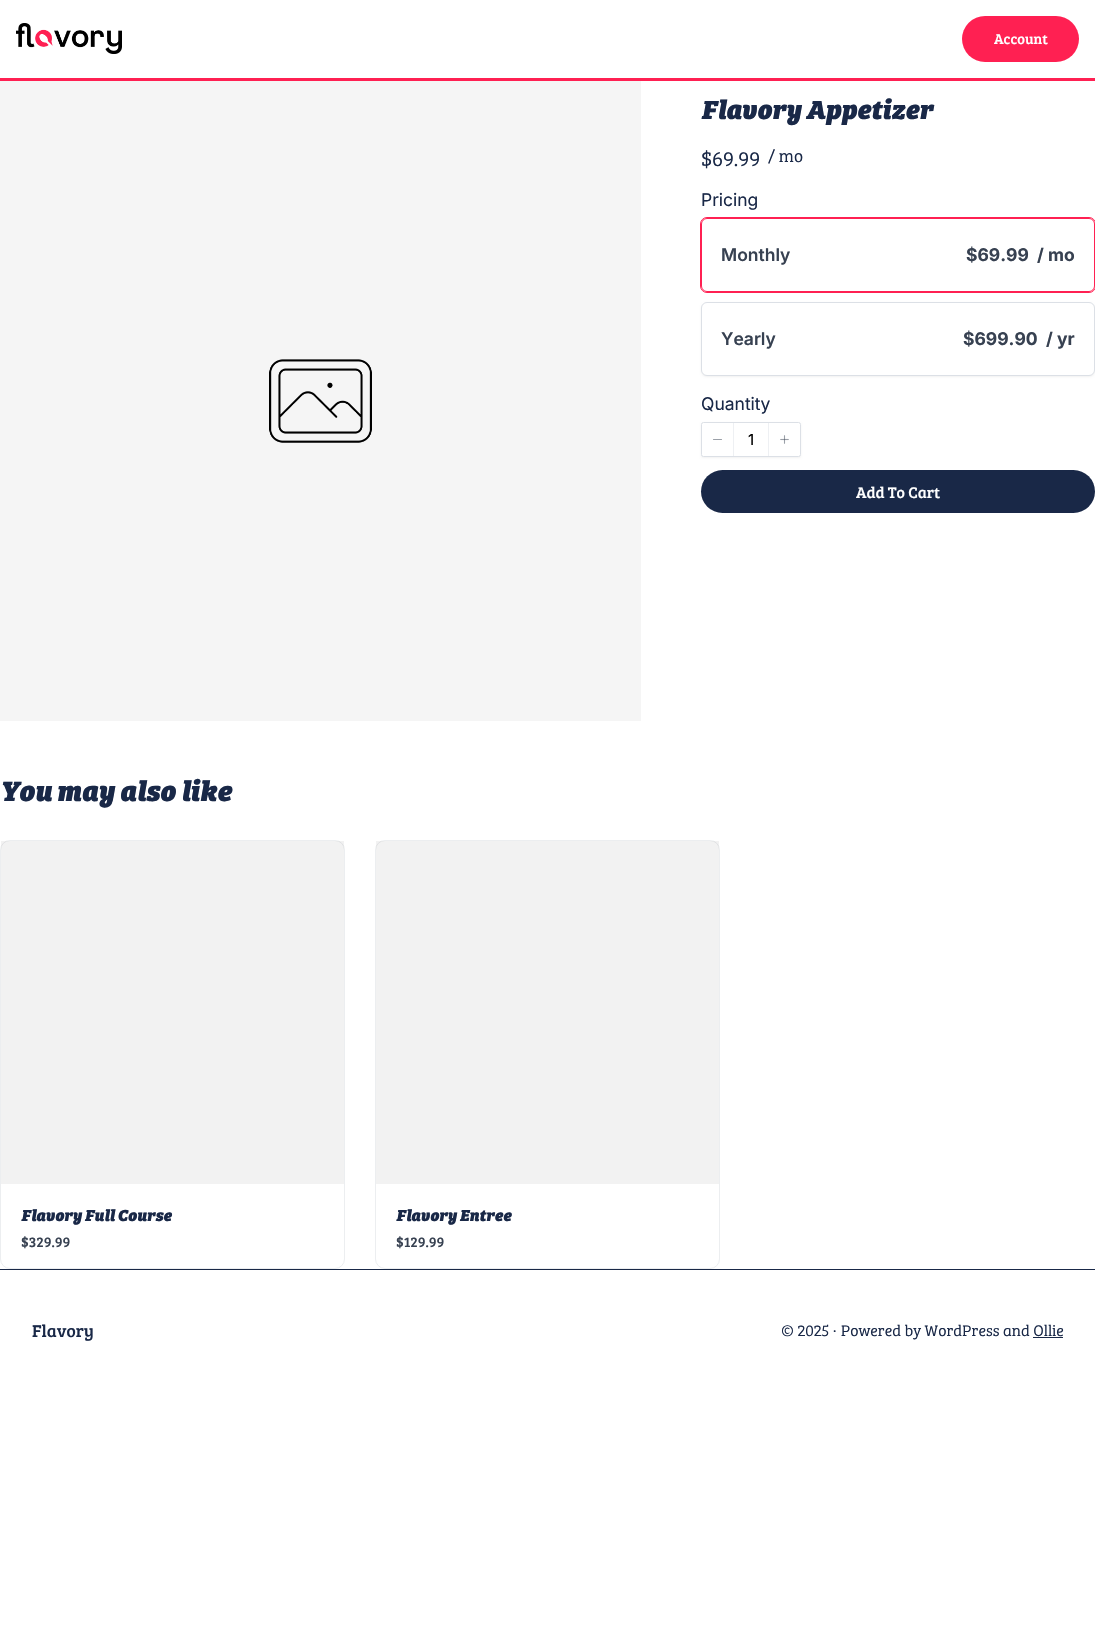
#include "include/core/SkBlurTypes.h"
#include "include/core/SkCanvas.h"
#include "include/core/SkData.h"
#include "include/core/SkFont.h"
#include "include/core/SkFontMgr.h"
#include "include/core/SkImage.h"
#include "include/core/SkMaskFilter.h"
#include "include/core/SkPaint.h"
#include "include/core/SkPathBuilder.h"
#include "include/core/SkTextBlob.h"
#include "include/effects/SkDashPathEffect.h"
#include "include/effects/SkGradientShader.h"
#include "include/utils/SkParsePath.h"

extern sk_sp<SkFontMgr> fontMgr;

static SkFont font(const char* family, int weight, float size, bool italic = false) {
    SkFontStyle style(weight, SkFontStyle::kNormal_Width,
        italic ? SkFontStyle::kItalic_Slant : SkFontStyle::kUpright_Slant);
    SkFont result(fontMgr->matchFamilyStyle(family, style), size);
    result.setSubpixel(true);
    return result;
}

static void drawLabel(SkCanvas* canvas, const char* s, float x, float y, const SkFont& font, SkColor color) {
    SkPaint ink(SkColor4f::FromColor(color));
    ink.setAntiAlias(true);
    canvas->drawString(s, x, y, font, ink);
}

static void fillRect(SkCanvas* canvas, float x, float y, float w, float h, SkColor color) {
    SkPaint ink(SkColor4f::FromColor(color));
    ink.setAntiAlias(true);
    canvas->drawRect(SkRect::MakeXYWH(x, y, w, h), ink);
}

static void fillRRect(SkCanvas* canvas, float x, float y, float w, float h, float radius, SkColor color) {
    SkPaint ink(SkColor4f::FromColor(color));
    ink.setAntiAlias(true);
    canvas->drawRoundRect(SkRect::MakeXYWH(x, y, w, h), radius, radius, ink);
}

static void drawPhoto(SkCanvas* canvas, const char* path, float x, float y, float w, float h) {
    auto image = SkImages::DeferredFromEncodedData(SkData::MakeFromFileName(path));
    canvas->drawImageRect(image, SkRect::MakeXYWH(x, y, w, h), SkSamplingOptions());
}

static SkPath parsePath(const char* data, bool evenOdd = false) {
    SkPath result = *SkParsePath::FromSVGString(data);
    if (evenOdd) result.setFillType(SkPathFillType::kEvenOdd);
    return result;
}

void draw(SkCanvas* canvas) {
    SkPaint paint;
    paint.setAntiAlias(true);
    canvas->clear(0xFFFFFFFF);
    fillRect(canvas, 0, 78, 1095, 3, 0xFFFF2052);
    drawPhoto(canvas, "assets/img1.png", 16, 23, 106, 31);
    fillRRect(canvas, 962, 16, 117, 46, 23, 0xFFFF2052);
    SkFont font1 = font("Bree Serif", 400, 14.5f);
    drawLabel(canvas, "Account", 994, 44, font1, 0xFFFFFFFF);
    drawPhoto(canvas, "assets/img2.png", 0, 81, 641, 640);
    SkFont font2 = font("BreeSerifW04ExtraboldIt", 800, 27.25f, true);
    drawLabel(canvas, "Flavory Appetizer", 701, 119, font2, 0xFF192847);
    SkFont font3 = font("Bree Serif", 300, 21);
    drawLabel(canvas, "$69.99", 701, 166, font3, 0xFF192847);
    SkFont font4 = font("Bree Serif", 300, 17.5f);
    drawLabel(canvas, "/ mo", 768, 162, font4, 0xFF192847);
    SkFont font5 = font("Inter", 400, 17.5f);
    drawLabel(canvas, "Pricing", 701, 206, font5, 0xFF192847);
    paint.setStroke(true);
    paint.setStrokeWidth(1);
    paint.setColor(0xFFFF2052);
    canvas->drawRoundRect(SkRect::MakeXYWH(700.5f, 217.5f, 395, 75), 6.5f, 6.5f, paint);
    paint.setStroke(false);
    paint.setColor(0xFFFFFFFF);
    canvas->drawRoundRect(SkRect::MakeXYWH(701.5f, 218.5f, 393, 73), 5.5f, 5.5f, paint);
    paint.setStroke(true);
    paint.setColor(0xFFFF2052);
    canvas->drawRoundRect(SkRect::MakeXYWH(701.5f, 218.5f, 393, 73), 5.5f, 5.5f, paint);
    SkFont font6 = font("Inter", 600, 17.5f);
    drawLabel(canvas, "Monthly", 721, 261, font6, 0xFF374151);
    SkFont font7 = font("Inter", 700, 17.5f);
    drawLabel(canvas, "$69.99", 966, 261, font7, 0xFF374151);
    drawLabel(canvas, "/ mo", 1037, 261, font7, 0xFF374151);
    paint.setStroke(false);
    paint.setColor(0x0D000000);
    paint.setMaskFilter(SkMaskFilter::MakeBlur(kNormal_SkBlurStyle, 1));
    canvas->drawRoundRect(SkRect::MakeXYWH(701, 303, 394, 74), 6, 6, paint);
    paint.setMaskFilter(nullptr);
    paint.setColor(0xFFFFFFFF);
    canvas->drawRoundRect(SkRect::MakeXYWH(701.5f, 302.5f, 393, 73), 5.5f, 5.5f, paint);
    paint.setStroke(true);
    paint.setColor(0xFFDCE0E6);
    canvas->drawRoundRect(SkRect::MakeXYWH(701.5f, 302.5f, 393, 73), 5.5f, 5.5f, paint);
    drawLabel(canvas, "Yearly", 721, 345, font6, 0xFF374151);
    drawLabel(canvas, "$699.90", 963, 345, font7, 0xFF374151);
    drawLabel(canvas, "/ yr", 1046, 345, font7, 0xFF374151);
    drawLabel(canvas, "Quantity", 701, 410, font5, 0xFF192847);
    paint.setStroke(false);
    paint.setColor(0x0D000000);
    paint.setMaskFilter(SkMaskFilter::MakeBlur(kNormal_SkBlurStyle, 1));
    canvas->drawRoundRect(SkRect::MakeXYWH(701, 423, 100, 35), 2.5f, 2.5f, paint);
    paint.setMaskFilter(nullptr);
    paint.setColor(0xFFFFFFFF);
    canvas->drawRoundRect(SkRect::MakeXYWH(701.5f, 422.5f, 99, 34), 2, 2, paint);
    paint.setStroke(true);
    paint.setColor(0xFFDCE0E6);
    canvas->drawRoundRect(SkRect::MakeXYWH(701.5f, 422.5f, 99, 34), 2, 2, paint);
    fillRect(canvas, 733, 423, 1, 33, 0xFFEEF0F3);
    paint.setStrokeWidth(1.1f);
    paint.setStrokeCap(SkPaint::kRound_Cap);
    paint.setStrokeJoin(SkPaint::kRound_Join);
    paint.setColor(0xFF9BA0A8);
    canvas->drawPath(parsePath("M713.5 439.5H721.5"), paint);
    SkFont font8 = font("Inter", 400, 15);
    drawLabel(canvas, "1", 748, 445, font8, 0xFF000000);
    fillRect(canvas, 768, 423, 1, 33, 0xFFEEF0F3);
    drawPhoto(canvas, "assets/img3.png", 780, 435, 9, 9);
    fillRRect(canvas, 701, 470, 394, 43, 21.5f, 0xFF192847);
    SkFont font9 = font("Bree Serif", 400, 15.9f);
    drawLabel(canvas, "Add To Cart", 856, 498, font9, 0xFFFFFFFF);
    SkFont font10 = font("BreeSerifW04ExtraboldIt", 800, 29, true);
    drawLabel(canvas, "You may also like", 0, 801, font10, 0xFF192847);
    paint.setStrokeWidth(1);
    paint.setStrokeCap(SkPaint::kButt_Cap);
    paint.setStrokeJoin(SkPaint::kMiter_Join);
    paint.setColor(0xFFECEEF0);
    canvas->drawRoundRect(SkRect::MakeXYWH(0.5f, 840.5f, 344, 428), 9.5f, 9.5f, paint);
    fillRect(canvas, 1, 841, 343, 343, 0x0D000000);
    SkFont font11 = font("BreeSerifW04ExtraboldIt", 800, 16.5f, true);
    drawLabel(canvas, "Flavory Full Course", 21, 1221, font11, 0xFF192847);
    drawLabel(canvas, "$329.99", 21, 1247, font1, 0xFF374151);
    canvas->drawRoundRect(SkRect::MakeXYWH(375.5f, 840.5f, 344, 428), 9.5f, 9.5f, paint);
    fillRect(canvas, 376, 841, 343, 343, 0x0D000000);
    drawLabel(canvas, "Flavory Entree", 396, 1221, font11, 0xFF192847);
    drawLabel(canvas, "$129.99", 396, 1247, font1, 0xFF374151);
    fillRect(canvas, 0, 1269, 1095, 1, 0xFF192847);
    SkFont font12 = font("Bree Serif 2", 400, 17.5f);
    drawLabel(canvas, "Flavory", 32, 1337, font12, 0xFF192847);
    SkFont font13 = font("Bree Serif", 300, 15.9f);
    drawLabel(canvas, "© 2025 · Powered by WordPress and Ollie", 781, 1336, font13, 0xFF192847);
    fillRect(canvas, 1033, 1337, 30, 1, 0xFF192847);
}
